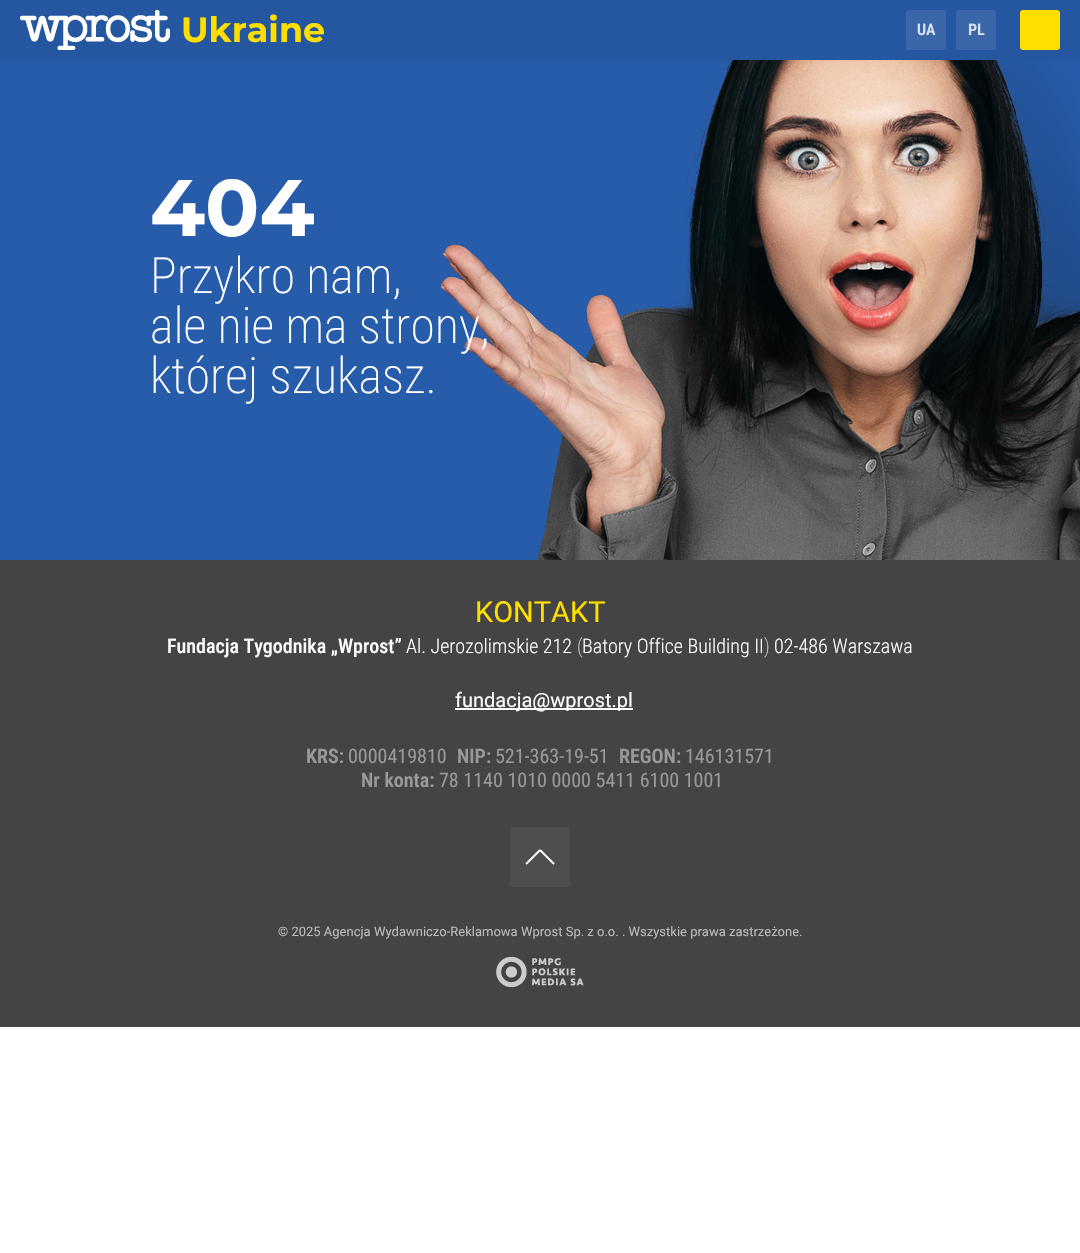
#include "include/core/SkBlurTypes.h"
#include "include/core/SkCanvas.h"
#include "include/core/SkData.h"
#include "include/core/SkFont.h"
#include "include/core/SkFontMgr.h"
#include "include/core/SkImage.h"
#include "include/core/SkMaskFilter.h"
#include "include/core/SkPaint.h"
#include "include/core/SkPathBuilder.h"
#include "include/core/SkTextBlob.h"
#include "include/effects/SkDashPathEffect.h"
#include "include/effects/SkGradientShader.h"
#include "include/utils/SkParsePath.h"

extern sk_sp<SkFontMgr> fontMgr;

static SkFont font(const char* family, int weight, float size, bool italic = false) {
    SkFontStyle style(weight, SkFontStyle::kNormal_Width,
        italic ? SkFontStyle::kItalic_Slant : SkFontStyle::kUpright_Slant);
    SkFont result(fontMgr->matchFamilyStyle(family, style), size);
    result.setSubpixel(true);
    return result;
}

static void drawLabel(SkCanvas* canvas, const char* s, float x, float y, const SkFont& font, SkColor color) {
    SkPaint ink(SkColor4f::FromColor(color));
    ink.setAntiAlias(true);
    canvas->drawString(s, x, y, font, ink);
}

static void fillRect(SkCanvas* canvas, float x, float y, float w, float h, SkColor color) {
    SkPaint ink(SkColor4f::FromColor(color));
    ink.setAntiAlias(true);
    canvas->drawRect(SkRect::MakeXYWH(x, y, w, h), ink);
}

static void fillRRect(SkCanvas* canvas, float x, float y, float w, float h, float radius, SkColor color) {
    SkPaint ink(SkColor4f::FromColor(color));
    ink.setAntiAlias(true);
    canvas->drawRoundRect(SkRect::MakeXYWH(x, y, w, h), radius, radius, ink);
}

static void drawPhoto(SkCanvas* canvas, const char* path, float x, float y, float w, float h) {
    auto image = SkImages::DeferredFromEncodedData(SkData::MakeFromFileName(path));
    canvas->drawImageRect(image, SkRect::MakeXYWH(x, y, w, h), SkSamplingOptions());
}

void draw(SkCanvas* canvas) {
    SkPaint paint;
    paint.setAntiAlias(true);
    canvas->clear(0xFFFFFFFF);
    fillRect(canvas, 0, 0, 1080, 60, 0xFF2556A0);
    drawPhoto(canvas, "assets/img1.png", 20, 10, 150, 40);
    SkFont font1 = font("Montserrat", 700, 35);
    drawLabel(canvas, "Ukraine", 181, 42, font1, 0xFFFFDE00);
    fillRRect(canvas, 906, 10, 40, 40, 3, 0xFF3B67AA);
    SkFont font2 = font("Roboto Condensed", 600, 16);
    drawLabel(canvas, "UA", 917, 35, font2, 0xFFD8E1EE);
    fillRRect(canvas, 956, 10, 40, 40, 3, 0xFF3B67AA);
    drawLabel(canvas, "PL", 968, 35, font2, 0xFFD8E1EE);
    fillRRect(canvas, 1020, 10, 40, 40, 3, 0xFFFFDE00);
    fillRect(canvas, 0, 60, 1080, 500, 0xFF275CAB);
    drawPhoto(canvas, "assets/img2.png", 440, 60, 640, 500);
    SkFont font3 = font("Montserrat", 700, 80);
    drawLabel(canvas, "404", 150, 236, font3, 0xFFFFFFFF);
    SkFont font4 = font("Roboto Condensed", 200, 50);
    drawLabel(canvas, "Przykro nam,", 150, 293, font4, 0xFFFFFFFF);
    drawLabel(canvas, "ale nie ma strony,", 150, 343, font4, 0xFFFFFFFF);
    drawLabel(canvas, "której szukasz.", 150, 393, font4, 0xFFFFFFFF);
    fillRect(canvas, 0, 560, 1080, 467, 0xFF444444);
    SkFont font5 = font("Roboto", 400, 29);
    drawLabel(canvas, "KONTAKT", 475, 622, font5, 0xFFFFDE00);
    SkFont font6 = font("Roboto Condensed", 500, 20);
    drawLabel(canvas, "Fundacja Tygodnika „Wprost”", 167, 653, font6, 0xFFFFFFFF);
    SkFont font7 = font("Roboto Condensed", 300, 20);
    drawLabel(canvas, "Al. Jerozolimskie 212", 406, 653, font7, 0xFFFFFFFF);
    SkFont font8 = font("Roboto Condensed", 200, 20);
    drawLabel(canvas, "(", 577, 653, font8, 0xFFDADADA);
    drawLabel(canvas, "Batory Office Building II", 582, 653, font7, 0xFFFFFFFF);
    drawLabel(canvas, ")", 764, 653, font8, 0xFFDADADA);
    drawLabel(canvas, "02-486 Warszawa", 774, 653, font7, 0xFFFFFFFF);
    fillRect(canvas, 455, 708, 178, 2, 0xFFFFFFFF);
    SkFont font9 = font("Roboto", 400, 20);
    drawLabel(canvas, "fundacja@wprost.pl", 455, 707, font9, 0xFFFFFFFF);
    SkFont font10 = font("Roboto Condensed", 600, 20);
    drawLabel(canvas, "KRS:", 306, 763, font10, 0xFF999999);
    SkFont font11 = font("Roboto Condensed", 400, 20);
    drawLabel(canvas, "0000419810", 348, 763, font11, 0xFF999999);
    drawLabel(canvas, "NIP:", 457, 763, font10, 0xFF999999);
    drawLabel(canvas, "521-363-19-51", 495, 763, font11, 0xFF999999);
    drawLabel(canvas, "REGON:", 619, 763, font10, 0xFF999999);
    drawLabel(canvas, "146131571", 685, 763, font11, 0xFF999999);
    drawLabel(canvas, "Nr konta:", 361, 787, font10, 0xFF999999);
    drawLabel(canvas, "78 1140 1010 0000 5411 6100 1001", 439, 787, font11, 0xFF999999);
    fillRRect(canvas, 510, 827, 60, 60, 3, 0xFF4E4E4E);
    drawPhoto(canvas, "assets/img3.png", 525, 849, 30, 16);
    SkFont font12 = font("Roboto", 400, 13);
    drawLabel(canvas, "© 2025 Agencja Wydawniczo-Reklamowa Wprost Sp. z o.o. . Wszystkie prawa zastrzeżone.", 278, 936, font12, 0xFFBBBBBB);
    drawPhoto(canvas, "assets/img4.png", 496, 957, 88, 30);
}
